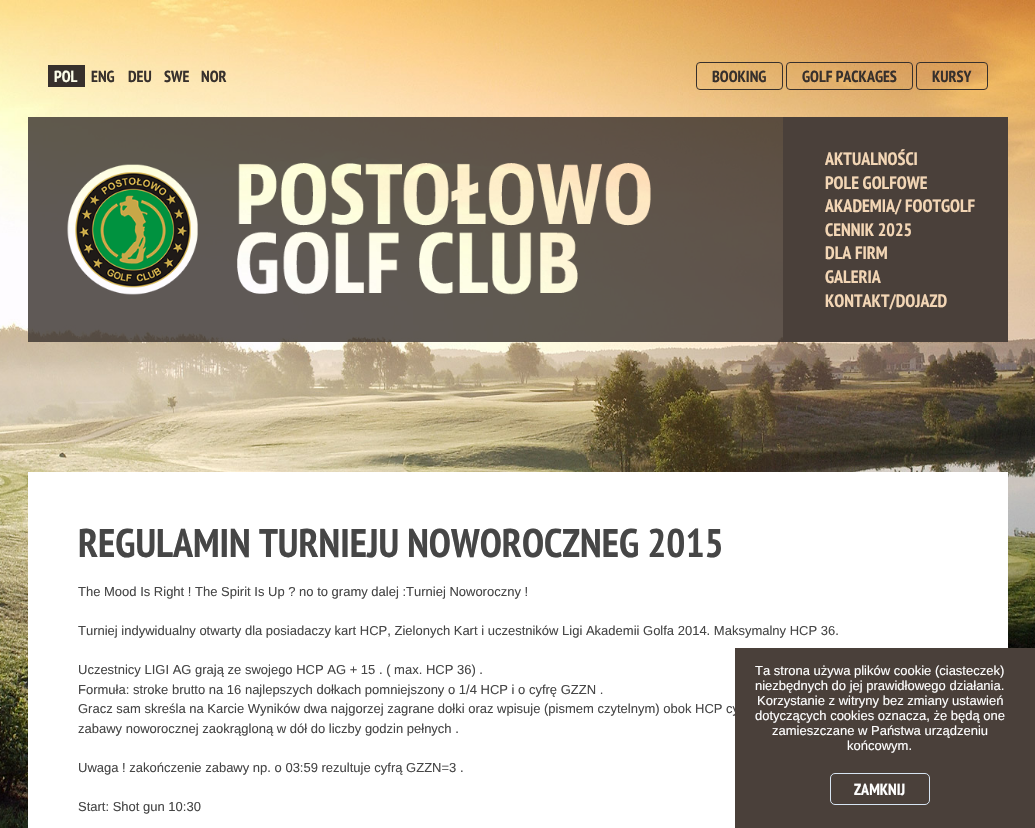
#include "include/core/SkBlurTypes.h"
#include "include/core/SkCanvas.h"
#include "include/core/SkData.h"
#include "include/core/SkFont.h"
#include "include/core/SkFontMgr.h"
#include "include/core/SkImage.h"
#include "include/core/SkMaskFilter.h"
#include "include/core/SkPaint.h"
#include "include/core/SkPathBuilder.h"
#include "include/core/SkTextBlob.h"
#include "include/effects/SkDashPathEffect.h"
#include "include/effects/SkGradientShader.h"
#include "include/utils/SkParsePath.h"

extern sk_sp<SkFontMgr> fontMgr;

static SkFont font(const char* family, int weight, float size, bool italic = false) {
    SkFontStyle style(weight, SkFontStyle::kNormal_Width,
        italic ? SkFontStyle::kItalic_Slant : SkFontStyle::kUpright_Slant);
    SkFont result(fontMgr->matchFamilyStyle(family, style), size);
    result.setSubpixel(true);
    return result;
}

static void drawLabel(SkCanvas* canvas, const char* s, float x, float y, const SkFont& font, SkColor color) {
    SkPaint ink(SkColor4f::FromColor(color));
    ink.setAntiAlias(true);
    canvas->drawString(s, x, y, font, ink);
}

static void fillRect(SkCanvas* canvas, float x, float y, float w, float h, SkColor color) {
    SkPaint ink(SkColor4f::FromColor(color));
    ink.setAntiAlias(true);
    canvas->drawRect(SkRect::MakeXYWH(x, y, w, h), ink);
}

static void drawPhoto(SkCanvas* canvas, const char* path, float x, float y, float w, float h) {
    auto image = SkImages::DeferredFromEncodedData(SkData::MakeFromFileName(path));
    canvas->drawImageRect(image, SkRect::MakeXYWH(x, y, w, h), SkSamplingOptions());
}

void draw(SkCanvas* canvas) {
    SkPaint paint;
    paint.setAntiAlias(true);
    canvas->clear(0xFFFFFFFF);
    drawPhoto(canvas, "assets/img1.png", 0, 0, 1035, 828);
    fillRect(canvas, 48, 65, 37, 22, 0xFF37302C);
    SkFont font1 = font("PT Sans Narrow", 700, 16);
    drawLabel(canvas, "POL", 54, 82, font1, 0xFFFDFEEA);
    drawLabel(canvas, "ENG", 91, 82, font1, 0xFF37302C);
    drawLabel(canvas, "DEU", 128, 82, font1, 0xFF37302C);
    drawLabel(canvas, "SWE", 164, 82, font1, 0xFF37302C);
    drawLabel(canvas, "NOR", 201, 82, font1, 0xFF37302C);
    paint.setStroke(true);
    paint.setStrokeWidth(1);
    paint.setColor(0xFF37302C);
    canvas->drawRoundRect(SkRect::MakeXYWH(696.5f, 62.5f, 86, 27), 3.5f, 3.5f, paint);
    drawLabel(canvas, "BOOKING", 712, 82, font1, 0xFF37302C);
    canvas->drawRoundRect(SkRect::MakeXYWH(786.5f, 62.5f, 126, 27), 3.5f, 3.5f, paint);
    drawLabel(canvas, "GOLF PACKAGES", 802, 82, font1, 0xFF37302C);
    canvas->drawRoundRect(SkRect::MakeXYWH(916.5f, 62.5f, 71, 27), 3.5f, 3.5f, paint);
    drawLabel(canvas, "KURSY", 932, 82, font1, 0xFF37302C);
    drawPhoto(canvas, "assets/img2.png", 28, 117, 755, 225);
    fillRect(canvas, 783, 117, 225, 225, 0xFF4A403A);
    SkFont font2 = font("PT Sans Narrow", 700, 18);
    drawLabel(canvas, "AKTUALNOŚCI", 825, 165, font2, 0xFFF3D6B5);
    drawLabel(canvas, "POLE GOLFOWE", 825, 189, font2, 0xFFF3D6B5);
    drawLabel(canvas, "AKADEMIA/ FOOTGOLF", 825, 212, font2, 0xFFF3D6B5);
    drawLabel(canvas, "CENNIK 2025", 825, 236, font2, 0xFFF3D6B5);
    drawLabel(canvas, "DLA FIRM", 825, 259, font2, 0xFFF3D6B5);
    drawLabel(canvas, "GALERIA", 825, 283, font2, 0xFFF3D6B5);
    drawLabel(canvas, "KONTAKT/DOJAZD", 825, 307, font2, 0xFFF3D6B5);
    fillRect(canvas, 28, 472, 980, 356, 0xFFFFFFFF);
    SkFont font3 = font("PT Sans Narrow", 700, 40);
    drawLabel(canvas, "REGULAMIN TURNIEJU NOWOROCZNEG 2015", 78, 557, font3, 0xFF464646);
    SkFont font4 = font("Liberation Sans", 400, 13);
    drawLabel(canvas, "The Mood Is Right ! The Spirit Is Up ? no to gramy dalej :Turniej Noworoczny !", 78, 596, font4, 0xFF464646);
    drawLabel(canvas, "Turniej indywidualny otwarty dla posiadaczy kart HCP, Zielonych Kart i uczestników Ligi Akademii Golfa 2014. Maksymalny HCP 36.", 78, 635, font4, 0xFF464646);
    drawLabel(canvas, "Uczestnicy LIGI AG grają ze swojego HCP AG + 15 . ( max. HCP 36) .", 78, 674, font4, 0xFF464646);
    drawLabel(canvas, "Formuła: stroke brutto na 16 najlepszych dołkach pomniejszony o 1/4 HCP i o cyfrę GZZN .", 78, 694, font4, 0xFF464646);
    drawLabel(canvas, "Gracz sam skreśla na Karcie Wyników dwa najgorzej zagrane dołki oraz wpisuje (pismem czytelnym) obok HCP cy", 78, 713, font4, 0xFF464646);
    drawLabel(canvas, "zabawy noworocznej zaokrągloną w dół do liczby godzin pełnych .", 78, 733, font4, 0xFF464646);
    drawLabel(canvas, "Uwaga ! zakończenie zabawy np. o 03:59 rezultuje cyfrą GZZN=3 .", 78, 772, font4, 0xFF464646);
    drawLabel(canvas, "Start: Shot gun 10:30", 78, 811, font4, 0xFF464646);
    fillRect(canvas, 735, 648, 300, 180, 0xFF4A403A);
    drawLabel(canvas, "Ta strona używa plików cookie (ciasteczek)", 755, 675, font4, 0xFFFFFFFF);
    drawLabel(canvas, "niezbędnych do jej prawidłowego działania.", 755, 690, font4, 0xFFFFFFFF);
    drawLabel(canvas, "Korzystanie z witryny bez zmiany ustawień", 757, 705, font4, 0xFFFFFFFF);
    drawLabel(canvas, "dotyczących cookies oznacza, że będą one", 755, 720, font4, 0xFFFFFFFF);
    drawLabel(canvas, "zamieszczane w Państwa urządzeniu", 772, 735, font4, 0xFFFFFFFF);
    drawLabel(canvas, "końcowym.", 847, 750, font4, 0xFFFFFFFF);
    paint.setColor(0xFFD7E5F3);
    canvas->drawRoundRect(SkRect::MakeXYWH(830.5f, 773.5f, 99, 31), 4.5f, 4.5f, paint);
    drawLabel(canvas, "ZAMKNIJ", 854, 795, font1, 0xFFFFFFFF);
}
